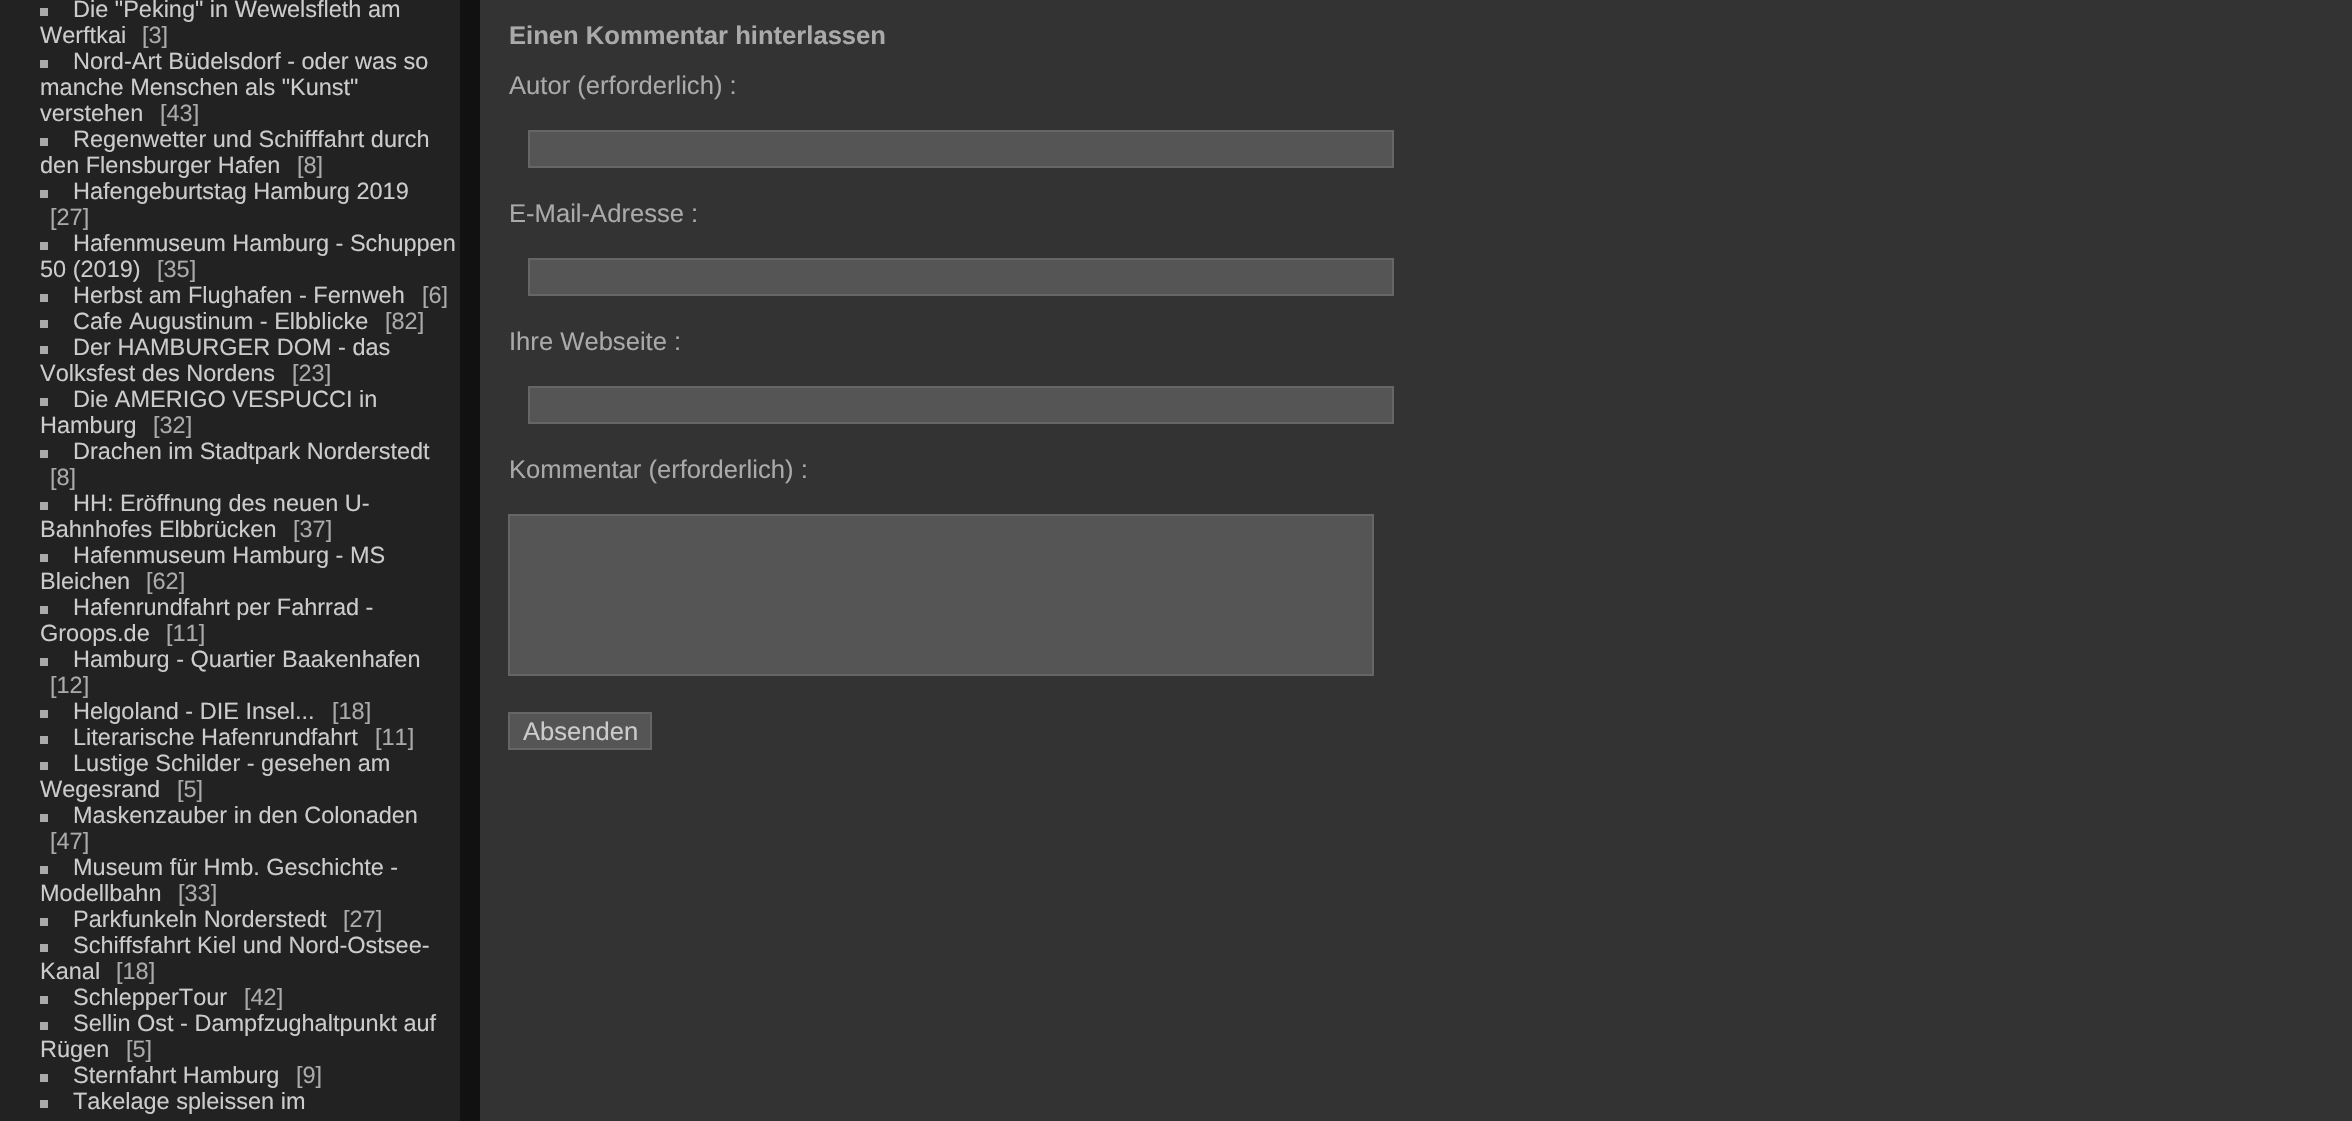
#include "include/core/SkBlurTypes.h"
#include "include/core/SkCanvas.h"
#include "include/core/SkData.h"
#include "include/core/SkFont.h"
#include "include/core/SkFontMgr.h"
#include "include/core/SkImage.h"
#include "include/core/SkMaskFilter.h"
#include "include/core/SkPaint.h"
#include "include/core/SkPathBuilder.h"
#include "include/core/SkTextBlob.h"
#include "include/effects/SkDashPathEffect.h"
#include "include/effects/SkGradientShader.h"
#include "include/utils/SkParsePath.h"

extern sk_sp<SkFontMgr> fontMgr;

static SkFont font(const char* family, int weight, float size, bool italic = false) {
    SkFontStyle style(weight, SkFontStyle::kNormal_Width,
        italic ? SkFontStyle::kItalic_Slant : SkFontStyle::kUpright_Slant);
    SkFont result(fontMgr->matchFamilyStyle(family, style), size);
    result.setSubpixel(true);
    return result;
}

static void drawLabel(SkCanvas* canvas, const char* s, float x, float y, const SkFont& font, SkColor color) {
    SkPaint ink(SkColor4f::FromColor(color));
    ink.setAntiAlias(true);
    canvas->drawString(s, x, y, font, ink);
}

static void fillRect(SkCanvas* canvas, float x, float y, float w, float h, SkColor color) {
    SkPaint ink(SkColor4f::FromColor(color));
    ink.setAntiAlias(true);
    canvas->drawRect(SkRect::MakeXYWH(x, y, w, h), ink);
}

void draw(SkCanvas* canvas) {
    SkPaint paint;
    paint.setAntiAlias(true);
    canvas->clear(0xFF111111);
    fillRect(canvas, 0, 0, 460, 1121, 0xFF222222);
    fillRect(canvas, 40, 8, 8, 8, 0xFFAAAAAA);
    SkFont font1 = font("Liberation Sans", 400, 23.5f);
    drawLabel(canvas, "Die \"Peking\" in Wewelsfleth am", 73, 17, font1, 0xFFCCCCCC);
    drawLabel(canvas, "Werftkai", 40, 43, font1, 0xFFCCCCCC);
    drawLabel(canvas, "[3]", 142, 43, font1, 0xFFAAAAAA);
    fillRect(canvas, 40, 60, 8, 8, 0xFFAAAAAA);
    drawLabel(canvas, "Nord-Art Büdelsdorf - oder was so", 73, 69, font1, 0xFFCCCCCC);
    drawLabel(canvas, "manche Menschen als \"Kunst\"", 40, 95, font1, 0xFFCCCCCC);
    drawLabel(canvas, "verstehen", 40, 121, font1, 0xFFCCCCCC);
    drawLabel(canvas, "[43]", 160, 121, font1, 0xFFAAAAAA);
    fillRect(canvas, 40, 138, 8, 8, 0xFFAAAAAA);
    drawLabel(canvas, "Regenwetter und Schifffahrt durch", 73, 147, font1, 0xFFCCCCCC);
    drawLabel(canvas, "den Flensburger Hafen", 40, 173, font1, 0xFFCCCCCC);
    drawLabel(canvas, "[8]", 297, 173, font1, 0xFFAAAAAA);
    fillRect(canvas, 40, 190, 8, 8, 0xFFAAAAAA);
    drawLabel(canvas, "Hafengeburtstag Hamburg 2019", 73, 199, font1, 0xFFCCCCCC);
    drawLabel(canvas, "[27]", 50, 225, font1, 0xFFAAAAAA);
    fillRect(canvas, 40, 242, 8, 8, 0xFFAAAAAA);
    drawLabel(canvas, "Hafenmuseum Hamburg - Schuppen", 73, 251, font1, 0xFFCCCCCC);
    drawLabel(canvas, "50 (2019)", 40, 277, font1, 0xFFCCCCCC);
    drawLabel(canvas, "[35]", 157, 277, font1, 0xFFAAAAAA);
    fillRect(canvas, 40, 294, 8, 8, 0xFFAAAAAA);
    drawLabel(canvas, "Herbst am Flughafen - Fernweh", 73, 303, font1, 0xFFCCCCCC);
    drawLabel(canvas, "[6]", 422, 303, font1, 0xFFAAAAAA);
    fillRect(canvas, 40, 320, 8, 8, 0xFFAAAAAA);
    drawLabel(canvas, "Cafe Augustinum - Elbblicke", 73, 329, font1, 0xFFCCCCCC);
    drawLabel(canvas, "[82]", 385, 329, font1, 0xFFAAAAAA);
    fillRect(canvas, 40, 346, 8, 8, 0xFFAAAAAA);
    drawLabel(canvas, "Der HAMBURGER DOM - das", 73, 355, font1, 0xFFCCCCCC);
    drawLabel(canvas, "Volksfest des Nordens", 40, 381, font1, 0xFFCCCCCC);
    drawLabel(canvas, "[23]", 292, 381, font1, 0xFFAAAAAA);
    fillRect(canvas, 40, 398, 8, 8, 0xFFAAAAAA);
    drawLabel(canvas, "Die AMERIGO VESPUCCI in", 73, 407, font1, 0xFFCCCCCC);
    drawLabel(canvas, "Hamburg", 40, 433, font1, 0xFFCCCCCC);
    drawLabel(canvas, "[32]", 153, 433, font1, 0xFFAAAAAA);
    fillRect(canvas, 40, 450, 8, 8, 0xFFAAAAAA);
    drawLabel(canvas, "Drachen im Stadtpark Norderstedt", 73, 459, font1, 0xFFCCCCCC);
    drawLabel(canvas, "[8]", 50, 485, font1, 0xFFAAAAAA);
    fillRect(canvas, 40, 502, 8, 8, 0xFFAAAAAA);
    drawLabel(canvas, "HH: Eröffnung des neuen U-", 73, 511, font1, 0xFFCCCCCC);
    drawLabel(canvas, "Bahnhofes Elbbrücken", 40, 537, font1, 0xFFCCCCCC);
    drawLabel(canvas, "[37]", 293, 537, font1, 0xFFAAAAAA);
    fillRect(canvas, 40, 554, 8, 8, 0xFFAAAAAA);
    drawLabel(canvas, "Hafenmuseum Hamburg - MS", 73, 563, font1, 0xFFCCCCCC);
    drawLabel(canvas, "Bleichen", 40, 589, font1, 0xFFCCCCCC);
    drawLabel(canvas, "[62]", 146, 589, font1, 0xFFAAAAAA);
    fillRect(canvas, 40, 606, 8, 8, 0xFFAAAAAA);
    drawLabel(canvas, "Hafenrundfahrt per Fahrrad -", 73, 615, font1, 0xFFCCCCCC);
    drawLabel(canvas, "Groops.de", 40, 641, font1, 0xFFCCCCCC);
    drawLabel(canvas, "[11]", 166, 641, font1, 0xFFAAAAAA);
    fillRect(canvas, 40, 658, 8, 8, 0xFFAAAAAA);
    drawLabel(canvas, "Hamburg - Quartier Baakenhafen", 73, 667, font1, 0xFFCCCCCC);
    drawLabel(canvas, "[12]", 50, 693, font1, 0xFFAAAAAA);
    fillRect(canvas, 40, 710, 8, 8, 0xFFAAAAAA);
    drawLabel(canvas, "Helgoland - DIE Insel...", 73, 719, font1, 0xFFCCCCCC);
    drawLabel(canvas, "[18]", 332, 719, font1, 0xFFAAAAAA);
    fillRect(canvas, 40, 736, 8, 8, 0xFFAAAAAA);
    drawLabel(canvas, "Literarische Hafenrundfahrt", 73, 745, font1, 0xFFCCCCCC);
    drawLabel(canvas, "[11]", 375, 745, font1, 0xFFAAAAAA);
    fillRect(canvas, 40, 762, 8, 8, 0xFFAAAAAA);
    drawLabel(canvas, "Lustige Schilder - gesehen am", 73, 771, font1, 0xFFCCCCCC);
    drawLabel(canvas, "Wegesrand", 40, 797, font1, 0xFFCCCCCC);
    drawLabel(canvas, "[5]", 177, 797, font1, 0xFFAAAAAA);
    fillRect(canvas, 40, 814, 8, 8, 0xFFAAAAAA);
    drawLabel(canvas, "Maskenzauber in den Colonaden", 73, 823, font1, 0xFFCCCCCC);
    drawLabel(canvas, "[47]", 50, 849, font1, 0xFFAAAAAA);
    fillRect(canvas, 40, 866, 8, 8, 0xFFAAAAAA);
    drawLabel(canvas, "Museum für Hmb. Geschichte -", 73, 875, font1, 0xFFCCCCCC);
    drawLabel(canvas, "Modellbahn", 40, 901, font1, 0xFFCCCCCC);
    drawLabel(canvas, "[33]", 178, 901, font1, 0xFFAAAAAA);
    fillRect(canvas, 40, 918, 8, 8, 0xFFAAAAAA);
    drawLabel(canvas, "Parkfunkeln Norderstedt", 73, 927, font1, 0xFFCCCCCC);
    drawLabel(canvas, "[27]", 343, 927, font1, 0xFFAAAAAA);
    fillRect(canvas, 40, 944, 8, 8, 0xFFAAAAAA);
    drawLabel(canvas, "Schiffsfahrt Kiel und Nord-Ostsee-", 73, 953, font1, 0xFFCCCCCC);
    drawLabel(canvas, "Kanal", 40, 979, font1, 0xFFCCCCCC);
    drawLabel(canvas, "[18]", 116, 979, font1, 0xFFAAAAAA);
    fillRect(canvas, 40, 996, 8, 8, 0xFFAAAAAA);
    drawLabel(canvas, "SchlepperTour", 73, 1005, font1, 0xFFCCCCCC);
    drawLabel(canvas, "[42]", 244, 1005, font1, 0xFFAAAAAA);
    fillRect(canvas, 40, 1022, 8, 8, 0xFFAAAAAA);
    drawLabel(canvas, "Sellin Ost - Dampfzughaltpunkt auf", 73, 1031, font1, 0xFFCCCCCC);
    drawLabel(canvas, "Rügen", 40, 1057, font1, 0xFFCCCCCC);
    drawLabel(canvas, "[5]", 126, 1057, font1, 0xFFAAAAAA);
    fillRect(canvas, 40, 1074, 8, 8, 0xFFAAAAAA);
    drawLabel(canvas, "Sternfahrt Hamburg", 73, 1083, font1, 0xFFCCCCCC);
    drawLabel(canvas, "[9]", 296, 1083, font1, 0xFFAAAAAA);
    fillRect(canvas, 40, 1100, 8, 8, 0xFFAAAAAA);
    drawLabel(canvas, "Takelage spleissen im", 73, 1109, font1, 0xFFCCCCCC);
    fillRect(canvas, 480, 0, 1872, 1121, 0xFF333333);
    SkFont font2 = font("Liberation Sans", 700, 25.6f);
    drawLabel(canvas, "Einen Kommentar hinterlassen", 509, 44, font2, 0xFFAAAAAA);
    SkFont font3 = font("Liberation Sans", 400, 25.6f);
    drawLabel(canvas, "Autor (erforderlich) :", 509, 94, font3, 0xFFAAAAAA);
    paint.setColor(0xFF555555);
    canvas->drawRect(SkRect::MakeXYWH(529, 131, 864, 36), paint);
    paint.setStroke(true);
    paint.setStrokeWidth(2);
    paint.setColor(0xFF666666);
    canvas->drawRect(SkRect::MakeXYWH(529, 131, 864, 36), paint);
    drawLabel(canvas, "E-Mail-Adresse :", 509, 222, font3, 0xFFAAAAAA);
    paint.setStroke(false);
    paint.setColor(0xFF555555);
    canvas->drawRect(SkRect::MakeXYWH(529, 259, 864, 36), paint);
    paint.setStroke(true);
    paint.setColor(0xFF666666);
    canvas->drawRect(SkRect::MakeXYWH(529, 259, 864, 36), paint);
    drawLabel(canvas, "Ihre Webseite :", 509, 350, font3, 0xFFAAAAAA);
    paint.setStroke(false);
    paint.setColor(0xFF555555);
    canvas->drawRect(SkRect::MakeXYWH(529, 387, 864, 36), paint);
    paint.setStroke(true);
    paint.setColor(0xFF666666);
    canvas->drawRect(SkRect::MakeXYWH(529, 387, 864, 36), paint);
    drawLabel(canvas, "Kommentar (erforderlich) :", 509, 478, font3, 0xFFAAAAAA);
    paint.setStroke(false);
    paint.setColor(0xFF555555);
    canvas->drawRect(SkRect::MakeXYWH(509, 515, 864, 160), paint);
    paint.setStroke(true);
    paint.setColor(0xFF666666);
    canvas->drawRect(SkRect::MakeXYWH(509, 515, 864, 160), paint);
    paint.setStroke(false);
    paint.setColor(0xFF555555);
    canvas->drawRect(SkRect::MakeXYWH(509, 713, 142, 36), paint);
    paint.setStroke(true);
    paint.setColor(0xFF666666);
    canvas->drawRect(SkRect::MakeXYWH(509, 713, 142, 36), paint);
    drawLabel(canvas, "Absenden", 523, 740, font3, 0xFFCCCCCC);
}
